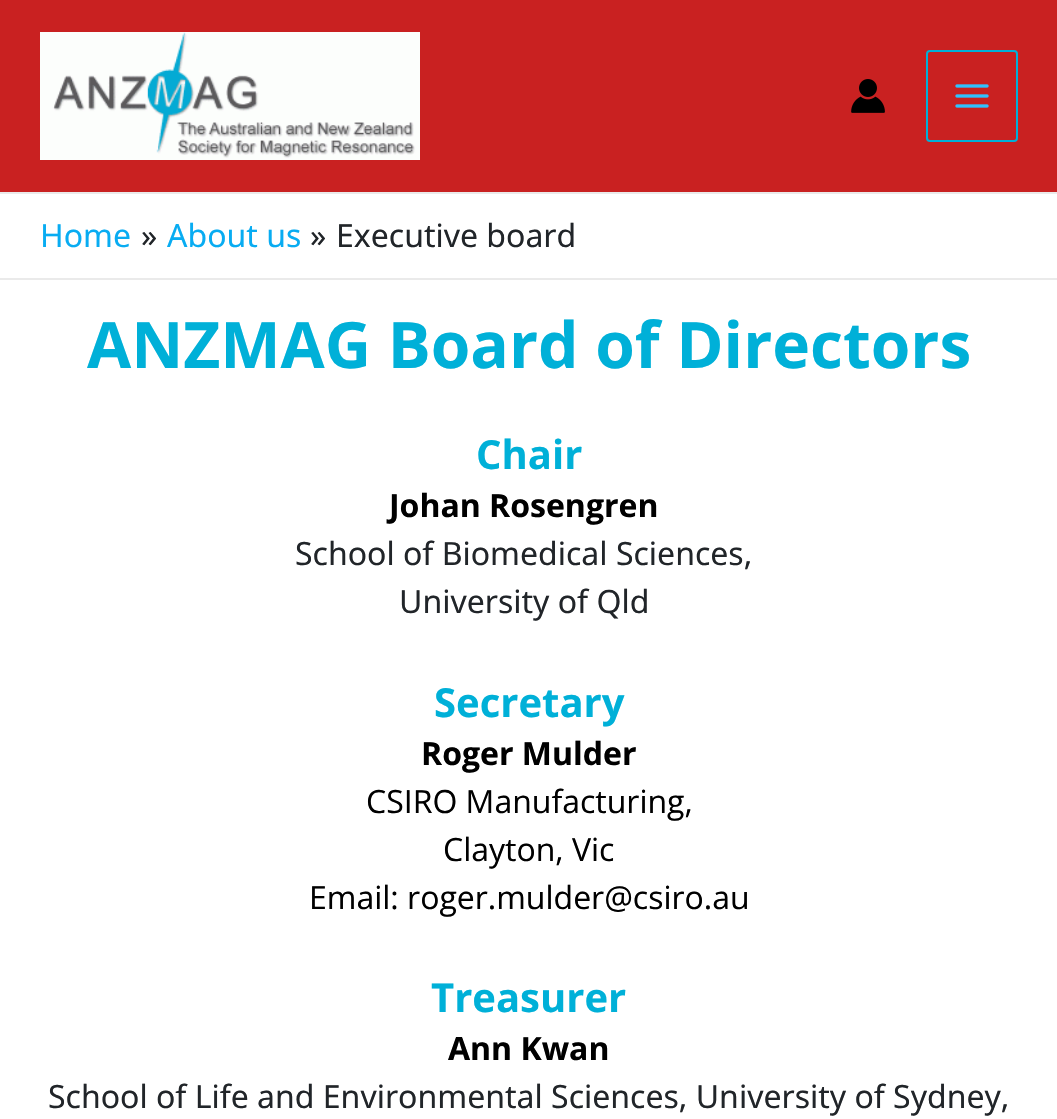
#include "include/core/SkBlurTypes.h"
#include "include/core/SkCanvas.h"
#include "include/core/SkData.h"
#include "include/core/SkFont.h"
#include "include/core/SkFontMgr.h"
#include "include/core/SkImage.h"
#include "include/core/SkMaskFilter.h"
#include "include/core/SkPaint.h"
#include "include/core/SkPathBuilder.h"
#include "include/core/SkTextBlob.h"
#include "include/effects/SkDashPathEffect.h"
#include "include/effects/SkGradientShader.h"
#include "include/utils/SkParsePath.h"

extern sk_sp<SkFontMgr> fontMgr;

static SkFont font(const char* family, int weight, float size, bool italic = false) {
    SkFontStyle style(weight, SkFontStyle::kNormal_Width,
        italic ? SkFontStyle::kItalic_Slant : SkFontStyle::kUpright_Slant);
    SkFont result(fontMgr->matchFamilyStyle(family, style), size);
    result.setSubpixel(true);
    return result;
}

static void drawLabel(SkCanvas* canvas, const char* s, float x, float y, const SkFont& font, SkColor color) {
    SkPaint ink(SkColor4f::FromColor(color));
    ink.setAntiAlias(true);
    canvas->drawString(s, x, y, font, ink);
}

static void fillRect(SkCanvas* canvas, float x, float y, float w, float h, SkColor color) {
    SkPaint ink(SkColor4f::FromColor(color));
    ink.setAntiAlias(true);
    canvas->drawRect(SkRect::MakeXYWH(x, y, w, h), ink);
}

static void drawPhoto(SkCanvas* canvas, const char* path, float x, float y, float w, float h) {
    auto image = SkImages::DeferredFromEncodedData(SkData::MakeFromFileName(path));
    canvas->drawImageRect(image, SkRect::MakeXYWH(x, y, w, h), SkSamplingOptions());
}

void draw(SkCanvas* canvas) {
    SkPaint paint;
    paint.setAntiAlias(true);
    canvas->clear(0xFFFFFFFF);
    fillRect(canvas, 0, 0, 1057, 192, 0xFFC92121);
    fillRect(canvas, 0, 192, 1057, 2, 0xFFEAEAEA);
    drawPhoto(canvas, "assets/img1.png", 40, 32, 380, 128);
    drawPhoto(canvas, "assets/img2.png", 851, 79, 34, 34);
    paint.setStroke(true);
    paint.setStrokeWidth(2);
    paint.setColor(0xFF00B0D8);
    canvas->drawRoundRect(SkRect::MakeXYWH(927, 51, 90, 90), 3, 3, paint);
    drawPhoto(canvas, "assets/img3.png", 955, 84, 34, 24);
    fillRect(canvas, 0, 278, 1057, 2, 0xFFEAEAEA);
    SkFont font1 = font("Noto Sans", 400, 32);
    drawLabel(canvas, "Home", 40, 247, font1, 0xFF08ACF2);
    drawLabel(canvas, "»", 141, 247, font1, 0xFF212529);
    drawLabel(canvas, "About us", 167, 247, font1, 0xFF08ACF2);
    drawLabel(canvas, "»", 310, 247, font1, 0xFF212529);
    drawLabel(canvas, "Executive board", 336, 247, font1, 0xFF212529);
    SkFont font2 = font("Open Sans", 700, 64);
    drawLabel(canvas, "ANZMAG Board of Directors", 87, 368, font2, 0xFF00B0D8);
    SkFont font3 = font("Open Sans", 700, 40);
    drawLabel(canvas, "Chair", 476, 469, font3, 0xFF00B0D8);
    SkFont font4 = font("Open Sans", 700, 32);
    drawLabel(canvas, "Johan Rosengren", 389, 517, font4, 0xFF000000);
    drawLabel(canvas, "School of Biomedical Sciences,", 295, 565, font1, 0xFF212529);
    drawLabel(canvas, "University of Qld", 399, 613, font1, 0xFF212529);
    drawLabel(canvas, "Secretary", 434, 717, font3, 0xFF00B0D8);
    drawLabel(canvas, "Roger Mulder", 421, 765, font4, 0xFF000000);
    SkFont font5 = font("Open Sans", 400, 32);
    drawLabel(canvas, "CSIRO Manufacturing,", 366, 813, font5, 0xFF000000);
    drawLabel(canvas, "Clayton, Vic", 443, 861, font5, 0xFF000000);
    drawLabel(canvas, "Email: roger.mulder@csiro.au", 309, 909, font5, 0xFF000000);
    drawLabel(canvas, "Treasurer", 431, 1012, font3, 0xFF00B0D8);
    drawLabel(canvas, "Ann Kwan", 448, 1060, font4, 0xFF000000);
    drawLabel(canvas, "School of Life and Environmental Sciences, University of Sydney,", 48, 1108, font1, 0xFF212529);
}
